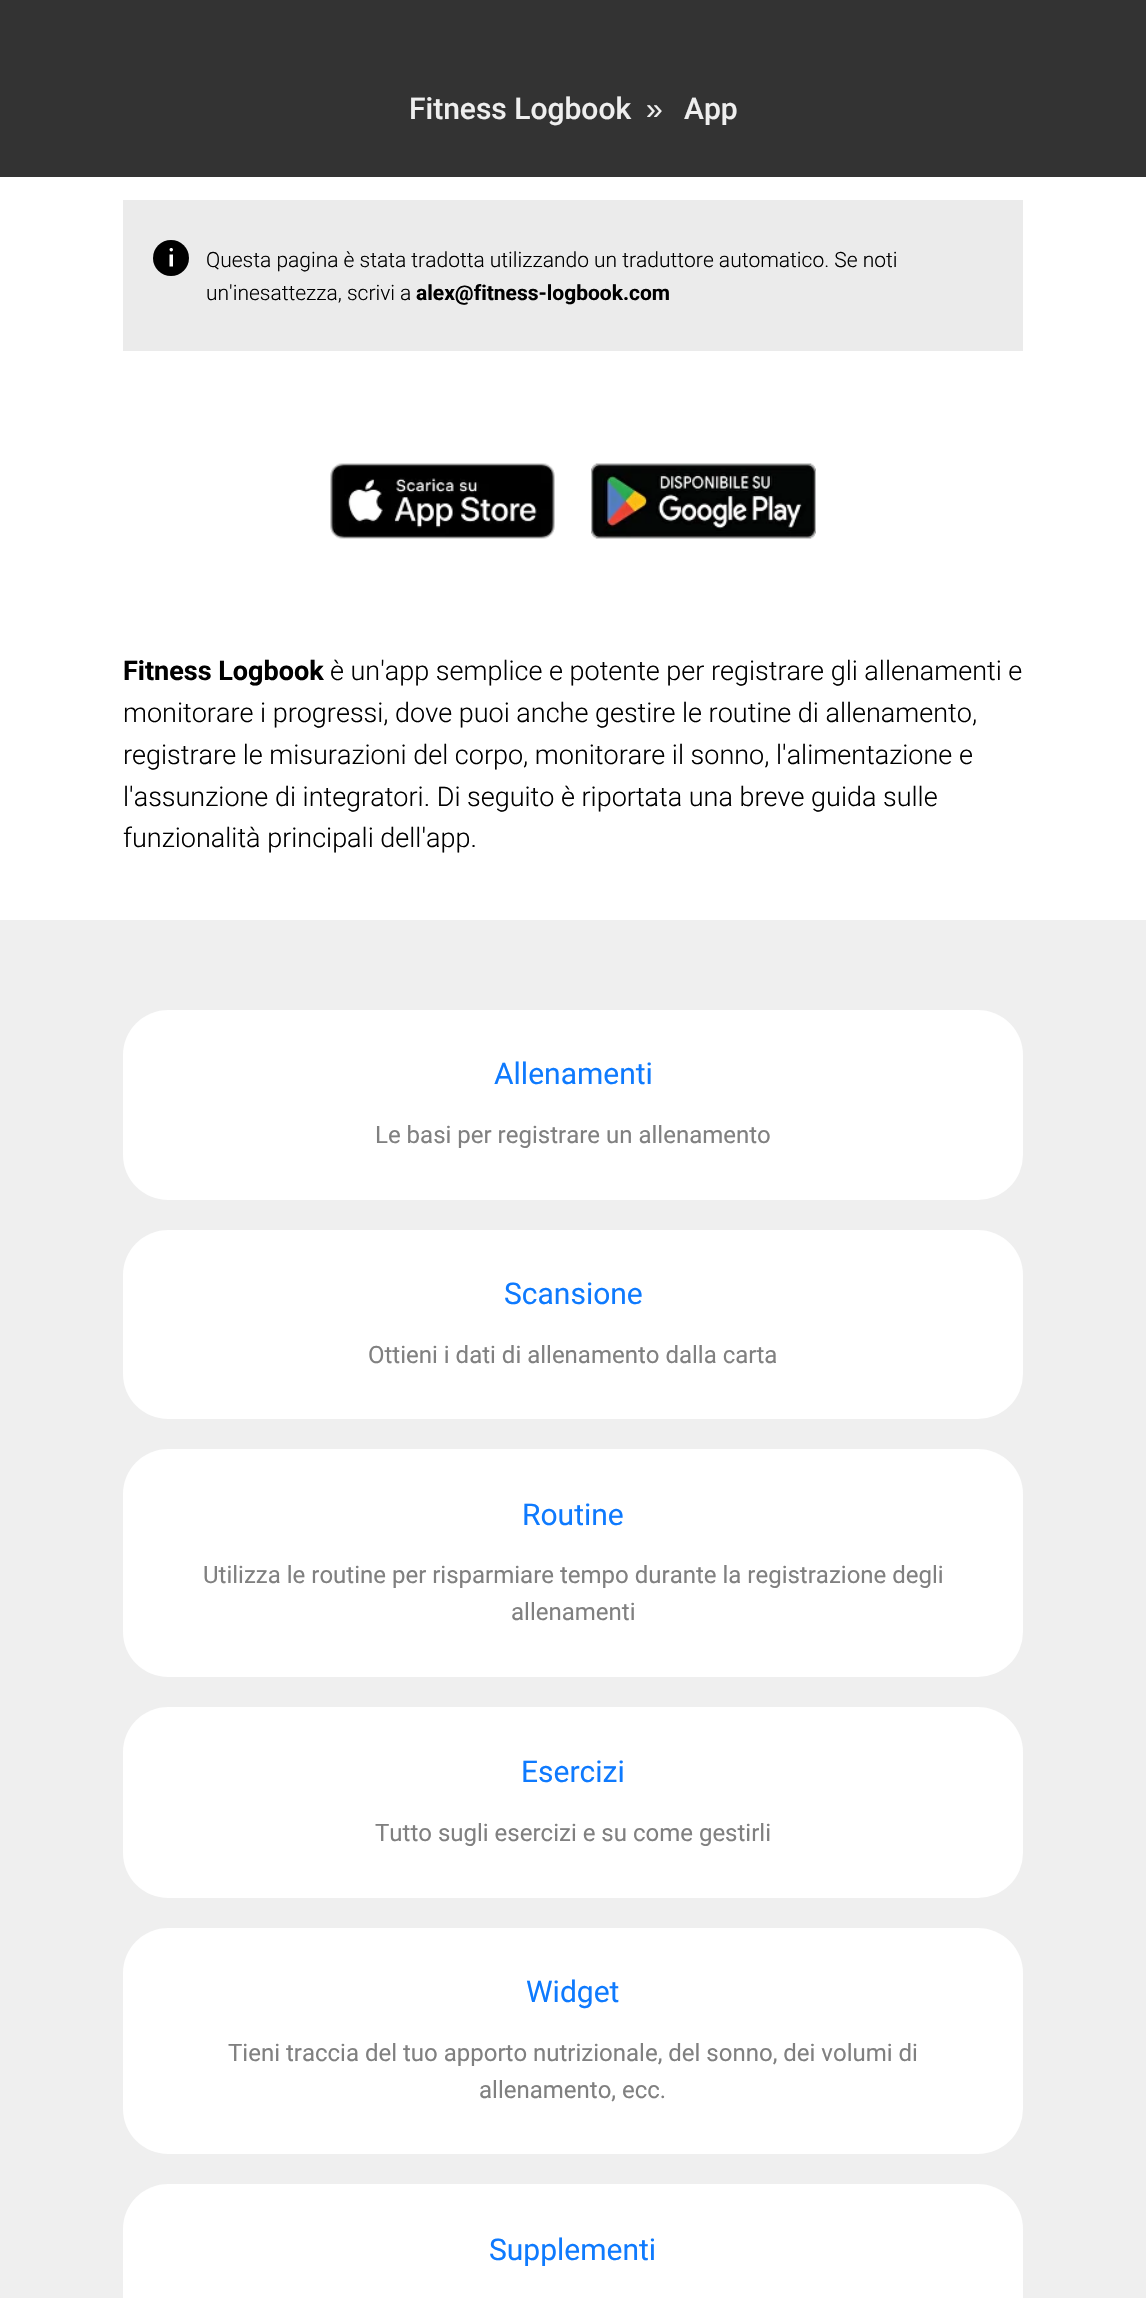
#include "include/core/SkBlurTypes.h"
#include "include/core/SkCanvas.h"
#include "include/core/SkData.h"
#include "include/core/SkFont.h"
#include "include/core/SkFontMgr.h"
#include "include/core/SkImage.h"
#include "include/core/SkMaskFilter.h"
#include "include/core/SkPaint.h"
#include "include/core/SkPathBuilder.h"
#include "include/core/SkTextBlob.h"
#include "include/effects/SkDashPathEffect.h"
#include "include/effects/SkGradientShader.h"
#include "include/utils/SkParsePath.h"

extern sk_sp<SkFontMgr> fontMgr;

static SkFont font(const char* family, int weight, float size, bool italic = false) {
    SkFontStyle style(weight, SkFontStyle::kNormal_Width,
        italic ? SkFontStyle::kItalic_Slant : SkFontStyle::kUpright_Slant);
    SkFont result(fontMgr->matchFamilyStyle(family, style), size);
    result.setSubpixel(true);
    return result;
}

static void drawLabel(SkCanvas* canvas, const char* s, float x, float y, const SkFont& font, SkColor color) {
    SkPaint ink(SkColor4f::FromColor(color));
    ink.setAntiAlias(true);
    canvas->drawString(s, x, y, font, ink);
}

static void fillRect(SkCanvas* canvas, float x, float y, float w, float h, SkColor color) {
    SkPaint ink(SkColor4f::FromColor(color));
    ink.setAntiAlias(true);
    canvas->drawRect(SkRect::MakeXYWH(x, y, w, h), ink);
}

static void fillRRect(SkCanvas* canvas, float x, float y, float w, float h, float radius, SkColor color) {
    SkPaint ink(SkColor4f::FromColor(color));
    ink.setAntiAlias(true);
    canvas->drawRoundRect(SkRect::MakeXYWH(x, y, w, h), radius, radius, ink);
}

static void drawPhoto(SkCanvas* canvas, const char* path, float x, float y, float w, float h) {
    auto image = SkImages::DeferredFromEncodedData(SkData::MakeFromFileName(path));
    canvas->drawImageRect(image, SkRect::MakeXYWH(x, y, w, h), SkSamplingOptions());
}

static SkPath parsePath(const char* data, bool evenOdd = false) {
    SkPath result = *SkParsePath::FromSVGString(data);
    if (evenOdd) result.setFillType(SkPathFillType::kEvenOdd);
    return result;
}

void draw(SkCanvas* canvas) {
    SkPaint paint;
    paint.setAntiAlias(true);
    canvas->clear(0xFFFFFFFF);
    fillRect(canvas, 0, 0, 1146, 177, 0xFF333333);
    SkFont font1 = font("Roboto", 500, 30);
    drawLabel(canvas, "Fitness Logbook", 409, 119, font1, 0xFFEFEFEF);
    SkFont font2 = font("Liberation Sans", 400, 30);
    drawLabel(canvas, "»", 646, 119, font2, 0xFFEFEFEF);
    drawLabel(canvas, "App", 684, 119, font1, 0xFFEFEFEF);
    fillRect(canvas, 123, 200, 900, 151, 0xFFEBEBEB);
    paint.setColor(0xFF000000);
    canvas->drawCircle(171, 258, 18, paint);
    paint.setColor(0xFFFFFFFF);
    canvas->drawPath(parsePath("M169.5 249.5C169.5 247.5 173 247.5 173 249.5C173 252 169.5 252 169.5 249.5ZM173 266.5H169.5V254.5H173Z"), paint);
    SkFont font3 = font("Roboto", 300, 21);
    drawLabel(canvas, "Questa pagina è stata tradotta utilizzando un traduttore automatico. Se noti", 206, 267, font3, 0xFF000000);
    drawLabel(canvas, "un'inesattezza, scrivi a", 206, 300, font3, 0xFF000000);
    SkFont font4 = font("Roboto", 700, 21);
    drawLabel(canvas, "alex@fitness-logbook.com", 416, 300, font4, 0xFF000000);
    drawPhoto(canvas, "assets/img1.png", 330, 463, 225, 76);
    drawPhoto(canvas, "assets/img2.png", 591, 463, 225, 76);
    SkFont font5 = font("Roboto", 700, 27);
    drawLabel(canvas, "Fitness Logbook", 123, 680, font5, 0xFF000000);
    SkFont font6 = font("Roboto", 300, 27);
    drawLabel(canvas, "è un'app semplice e potente per registrare gli allenamenti e", 330, 680, font6, 0xFF000000);
    drawLabel(canvas, "monitorare i progressi, dove puoi anche gestire le routine di allenamento,", 123, 722, font6, 0xFF000000);
    drawLabel(canvas, "registrare le misurazioni del corpo, monitorare il sonno, l'alimentazione e", 123, 764, font6, 0xFF000000);
    drawLabel(canvas, "l'assunzione di integratori. Di seguito è riportata una breve guida sulle", 123, 806, font6, 0xFF000000);
    drawLabel(canvas, "funzionalità principali dell'app.", 123, 847, font6, 0xFF000000);
    fillRect(canvas, 0, 920, 1146, 1378, 0xFFEFEFEF);
    fillRRect(canvas, 123, 1010, 900, 190, 45, 0xFFFFFFFF);
    SkFont font7 = font("Roboto", 400, 30);
    drawLabel(canvas, "Allenamenti", 494, 1084, font7, 0xFF0E7AFE);
    SkFont font8 = font("Roboto", 400, 24);
    drawLabel(canvas, "Le basi per registrare un allenamento", 375, 1143, font8, 0xFF808080);
    fillRRect(canvas, 123, 1230, 900, 189, 45, 0xFFFFFFFF);
    drawLabel(canvas, "Scansione", 504, 1304, font7, 0xFF0E7AFE);
    drawLabel(canvas, "Ottieni i dati di allenamento dalla carta", 368, 1363, font8, 0xFF808080);
    fillRRect(canvas, 123, 1449, 900, 228, 45, 0xFFFFFFFF);
    drawLabel(canvas, "Routine", 522, 1525, font7, 0xFF0E7AFE);
    drawLabel(canvas, "Utilizza le routine per risparmiare tempo durante la registrazione degli", 203, 1583, font8, 0xFF808080);
    drawLabel(canvas, "allenamenti", 511, 1620, font8, 0xFF808080);
    fillRRect(canvas, 123, 1707, 900, 191, 45, 0xFFFFFFFF);
    drawLabel(canvas, "Esercizi", 521, 1782, font7, 0xFF0E7AFE);
    drawLabel(canvas, "Tutto sugli esercizi e su come gestirli", 375, 1841, font8, 0xFF808080);
    fillRRect(canvas, 123, 1928, 900, 226, 45, 0xFFFFFFFF);
    drawLabel(canvas, "Widget", 526, 2002, font7, 0xFF0E7AFE);
    drawLabel(canvas, "Tieni traccia del tuo apporto nutrizionale, del sonno, dei volumi di", 228, 2061, font8, 0xFF808080);
    drawLabel(canvas, "allenamento, ecc.", 479, 2098, font8, 0xFF808080);
    fillRRect(canvas, 123, 2184, 900, 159, 45, 0xFFFFFFFF);
    drawLabel(canvas, "Supplementi", 489, 2260, font7, 0xFF0E7AFE);
}
